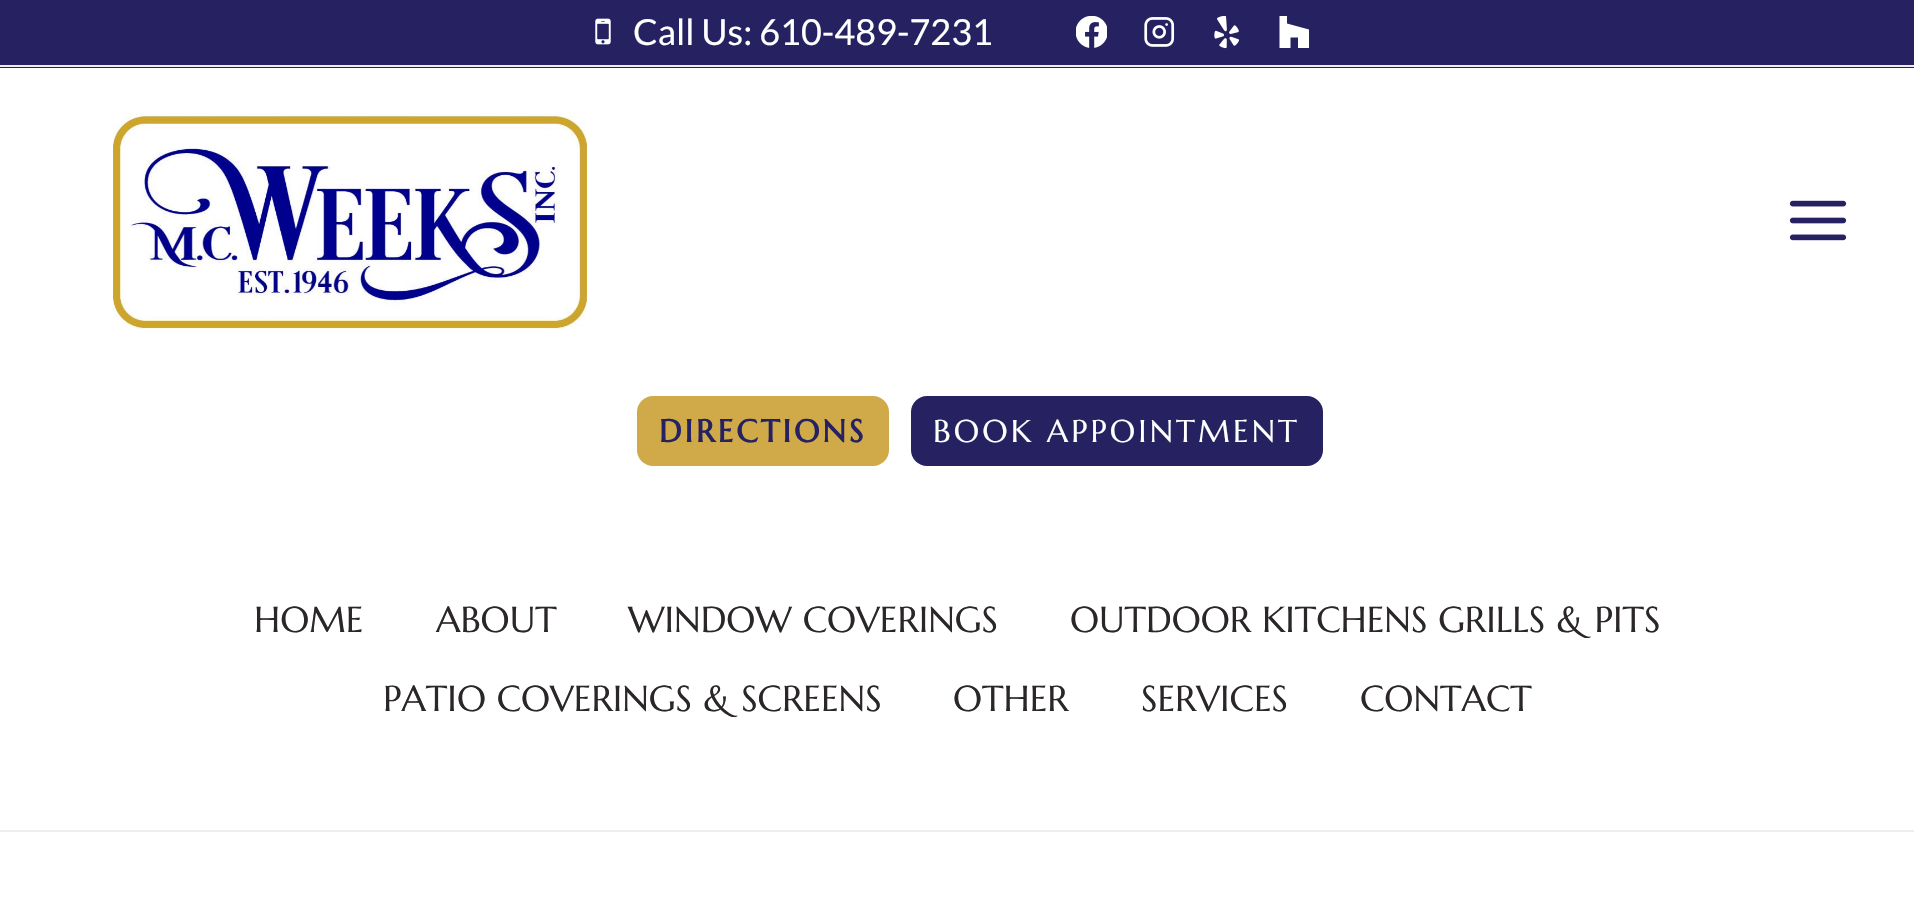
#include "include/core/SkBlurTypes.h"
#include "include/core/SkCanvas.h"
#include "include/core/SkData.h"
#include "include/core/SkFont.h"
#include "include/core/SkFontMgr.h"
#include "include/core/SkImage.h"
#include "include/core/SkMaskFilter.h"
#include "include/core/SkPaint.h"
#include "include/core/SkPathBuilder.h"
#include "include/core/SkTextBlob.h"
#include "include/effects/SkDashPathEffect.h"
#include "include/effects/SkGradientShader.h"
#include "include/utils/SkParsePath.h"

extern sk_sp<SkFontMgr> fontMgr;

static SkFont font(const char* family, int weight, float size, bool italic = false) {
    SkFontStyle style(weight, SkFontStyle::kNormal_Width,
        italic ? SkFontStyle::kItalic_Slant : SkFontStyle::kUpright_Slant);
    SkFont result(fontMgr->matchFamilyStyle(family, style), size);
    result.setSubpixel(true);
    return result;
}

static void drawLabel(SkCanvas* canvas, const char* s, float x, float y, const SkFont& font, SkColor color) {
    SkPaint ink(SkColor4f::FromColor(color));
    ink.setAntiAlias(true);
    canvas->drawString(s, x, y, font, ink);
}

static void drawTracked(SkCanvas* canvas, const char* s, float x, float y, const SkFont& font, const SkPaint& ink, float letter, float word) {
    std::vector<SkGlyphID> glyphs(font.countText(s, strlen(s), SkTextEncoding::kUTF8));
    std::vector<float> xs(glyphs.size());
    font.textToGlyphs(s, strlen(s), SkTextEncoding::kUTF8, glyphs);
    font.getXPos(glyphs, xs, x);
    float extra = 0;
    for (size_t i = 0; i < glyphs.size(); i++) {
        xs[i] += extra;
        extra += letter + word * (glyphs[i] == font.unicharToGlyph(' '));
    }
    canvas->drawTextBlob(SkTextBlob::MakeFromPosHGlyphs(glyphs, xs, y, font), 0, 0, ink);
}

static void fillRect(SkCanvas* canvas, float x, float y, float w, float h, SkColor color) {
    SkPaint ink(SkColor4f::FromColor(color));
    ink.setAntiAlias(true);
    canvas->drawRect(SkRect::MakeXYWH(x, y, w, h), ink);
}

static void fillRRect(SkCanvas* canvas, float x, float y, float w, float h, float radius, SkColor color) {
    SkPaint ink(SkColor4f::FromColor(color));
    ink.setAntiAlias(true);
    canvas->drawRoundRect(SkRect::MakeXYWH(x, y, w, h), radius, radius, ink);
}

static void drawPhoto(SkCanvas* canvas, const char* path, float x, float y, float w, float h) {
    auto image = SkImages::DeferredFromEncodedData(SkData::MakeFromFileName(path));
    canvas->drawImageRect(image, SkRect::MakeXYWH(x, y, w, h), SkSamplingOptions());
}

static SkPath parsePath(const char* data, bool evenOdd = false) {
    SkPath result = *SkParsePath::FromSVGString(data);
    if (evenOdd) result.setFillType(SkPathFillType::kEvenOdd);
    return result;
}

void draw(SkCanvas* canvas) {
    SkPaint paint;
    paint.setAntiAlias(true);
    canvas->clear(0xFFFFFFFF);
    fillRect(canvas, 0, 0, 1914, 68, 0xFF262261);
    fillRect(canvas, 0, 65, 1914, 2, 0xFFEEEEEE);
    drawPhoto(canvas, "assets/img1.png", 595, 18, 16, 27);
    SkFont font1 = font("Lato", 400, 36);
    drawLabel(canvas, "Call Us: 610-489-7231", 633, 45, font1, 0xFFFFFFFF);
    drawPhoto(canvas, "assets/img2.png", 1076, 16, 31, 32);
    drawPhoto(canvas, "assets/img3.png", 1144, 17, 31, 30);
    drawPhoto(canvas, "assets/img4.png", 1214, 16, 25, 33);
    paint.setColor(0xFFFFFFFF);
    canvas->drawPath(parsePath("M1298 48H1309V29.5L1287 23.5V16H1279.5V48H1290.5V37.5H1298Z"), paint);
    drawPhoto(canvas, "assets/img5.png", 113, 113, 474, 216);
    drawPhoto(canvas, "assets/img6.png", 1789, 200, 58, 41);
    fillRRect(canvas, 637, 396, 252, 70, 16, 0xFFD0A949);
    SkFont font2 = font("Marcellus", 700, 31.5f);
    paint.setColor(0xFF262261);
    drawTracked(canvas, "DIRECTIONS", 659, 442, font2, paint, 3.1f, 0);
    fillRRect(canvas, 911, 396, 412, 70, 16, 0xFF262261);
    SkFont font3 = font("Marcellus", 400, 31.5f);
    paint.setColor(0xFFFFFFFF);
    drawTracked(canvas, "BOOK APPOINTMENT", 933, 442, font3, paint, 3.1f, 0);
    SkFont font4 = font("Marcellus", 400, 36);
    drawLabel(canvas, "HOME", 254, 632, font4, 0xFF2B2729);
    drawLabel(canvas, "ABOUT", 436, 632, font4, 0xFF2B2729);
    drawLabel(canvas, "WINDOW COVERINGS", 628, 632, font4, 0xFF2B2729);
    drawLabel(canvas, "OUTDOOR KITCHENS GRILLS & PITS", 1070, 632, font4, 0xFF2B2729);
    drawLabel(canvas, "PATIO COVERINGS & SCREENS", 383, 711, font4, 0xFF2B2729);
    drawLabel(canvas, "OTHER", 953, 711, font4, 0xFF2B2729);
    drawLabel(canvas, "SERVICES", 1141, 711, font4, 0xFF2B2729);
    drawLabel(canvas, "CONTACT", 1360, 711, font4, 0xFF2B2729);
    fillRect(canvas, 0, 830, 1914, 2, 0xFFEEEEEE);
}
